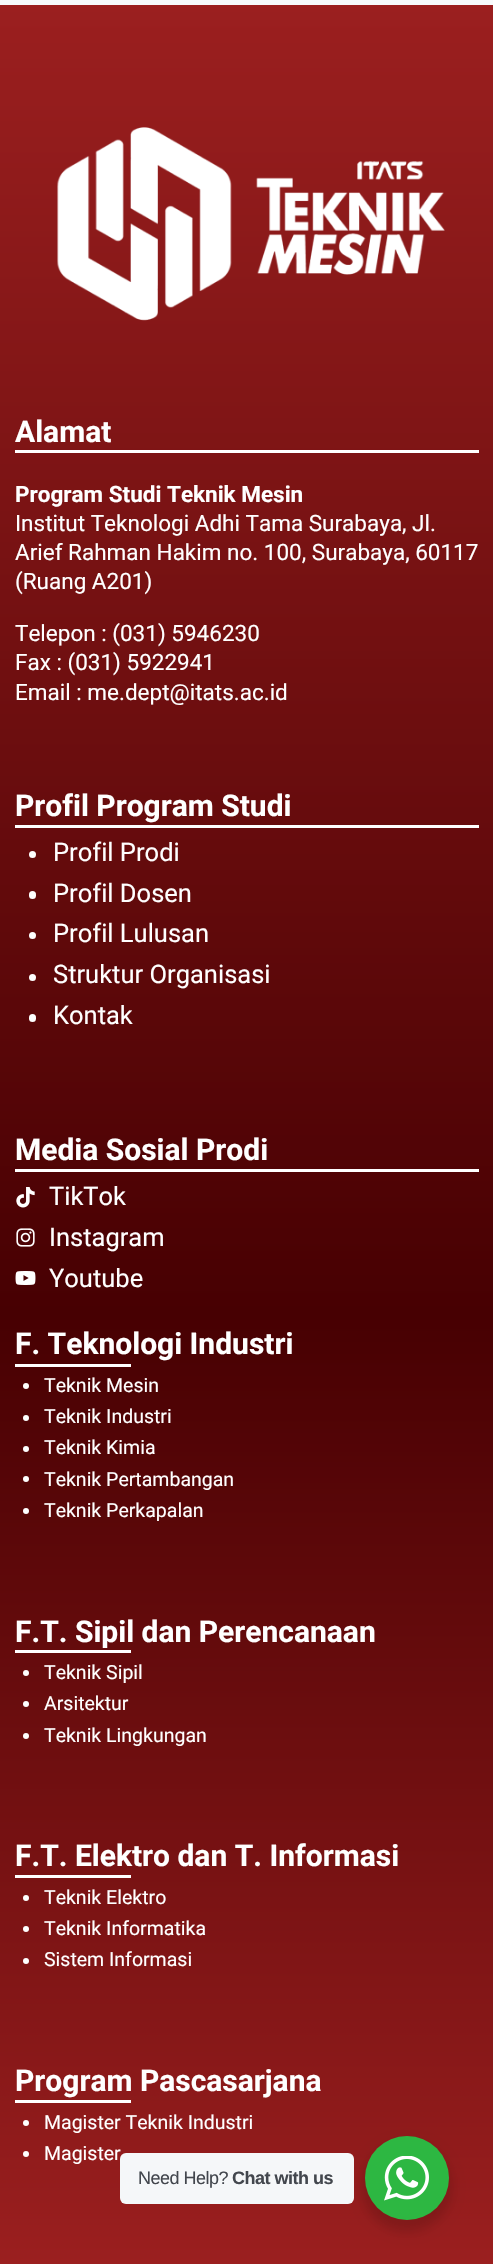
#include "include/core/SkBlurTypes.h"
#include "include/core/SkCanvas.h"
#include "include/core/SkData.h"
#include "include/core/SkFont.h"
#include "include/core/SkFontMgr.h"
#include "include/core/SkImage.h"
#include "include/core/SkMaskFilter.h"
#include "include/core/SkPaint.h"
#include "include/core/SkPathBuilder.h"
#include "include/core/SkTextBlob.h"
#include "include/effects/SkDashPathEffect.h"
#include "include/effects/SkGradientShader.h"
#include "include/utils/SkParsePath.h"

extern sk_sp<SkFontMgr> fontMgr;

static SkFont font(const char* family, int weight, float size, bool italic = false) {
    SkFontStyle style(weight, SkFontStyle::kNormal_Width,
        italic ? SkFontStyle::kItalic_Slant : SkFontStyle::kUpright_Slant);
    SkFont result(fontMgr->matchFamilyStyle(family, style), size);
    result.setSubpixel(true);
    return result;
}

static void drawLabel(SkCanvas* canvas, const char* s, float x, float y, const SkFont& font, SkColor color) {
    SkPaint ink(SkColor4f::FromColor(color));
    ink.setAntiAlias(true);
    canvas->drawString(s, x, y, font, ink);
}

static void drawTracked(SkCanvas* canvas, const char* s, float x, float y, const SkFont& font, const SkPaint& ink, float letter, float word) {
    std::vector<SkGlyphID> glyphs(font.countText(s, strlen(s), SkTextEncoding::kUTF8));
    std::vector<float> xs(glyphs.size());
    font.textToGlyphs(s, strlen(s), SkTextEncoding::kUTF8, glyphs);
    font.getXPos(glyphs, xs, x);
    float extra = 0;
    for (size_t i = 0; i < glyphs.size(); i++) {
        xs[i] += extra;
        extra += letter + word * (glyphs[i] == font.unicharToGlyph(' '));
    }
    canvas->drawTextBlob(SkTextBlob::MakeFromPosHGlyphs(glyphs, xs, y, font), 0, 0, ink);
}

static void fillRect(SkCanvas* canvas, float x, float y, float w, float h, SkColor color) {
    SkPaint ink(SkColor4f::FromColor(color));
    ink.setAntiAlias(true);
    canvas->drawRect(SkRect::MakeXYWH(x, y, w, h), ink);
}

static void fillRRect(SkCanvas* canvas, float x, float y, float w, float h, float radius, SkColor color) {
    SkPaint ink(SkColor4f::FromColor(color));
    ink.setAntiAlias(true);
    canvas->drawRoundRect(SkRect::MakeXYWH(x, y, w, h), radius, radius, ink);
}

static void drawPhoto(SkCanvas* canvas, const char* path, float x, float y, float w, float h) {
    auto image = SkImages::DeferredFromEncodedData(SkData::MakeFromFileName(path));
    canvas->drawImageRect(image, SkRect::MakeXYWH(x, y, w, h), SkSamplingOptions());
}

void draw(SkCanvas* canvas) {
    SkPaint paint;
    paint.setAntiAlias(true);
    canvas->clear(0xFFF7FAFC);
    {
        const SkColor colors[] = {0xFF9B1F1F, 0xFF470002};
        const float stops[] = {0, 1};
        const SkPoint ends[] = {{247, 4.5f}, {247, 1314}};
        paint.setShader(SkGradientShader::MakeLinear(ends, colors, stops, 2, SkTileMode::kClamp));
        paint.setAlpha(255);
    }
    canvas->drawRect(SkRect::MakeXYWH(0, 5, 493, 1309), paint);
    drawPhoto(canvas, "assets/img1.png", 57, 127, 388, 194);
    SkFont font1 = font("Roboto", 700, 30);
    drawLabel(canvas, "Alamat", 15, 442, font1, 0xFFFFFFFF);
    fillRect(canvas, 15, 450, 464, 3, 0xFFFFFFFF);
    SkFont font2 = font("Roboto", 700, 22.5f);
    drawLabel(canvas, "Program Studi Teknik Mesin", 15, 502, font2, 0xFFFFFFFF);
    SkFont font3 = font("Roboto", 400, 22.5f);
    drawLabel(canvas, "Institut Teknologi Adhi Tama Surabaya, Jl.", 15, 531, font3, 0xFFFFFFFF);
    drawLabel(canvas, "Arief Rahman Hakim no. 100, Surabaya, 60117", 15, 560, font3, 0xFFFFFFFF);
    drawLabel(canvas, "(Ruang A201)", 15, 589, font3, 0xFFFFFFFF);
    drawLabel(canvas, "Telepon : (031) 5946230", 15, 641, font3, 0xFFFFFFFF);
    drawLabel(canvas, "Fax : (031) 5922941", 15, 670, font3, 0xFFFFFFFF);
    drawLabel(canvas, "Email : me.dept@itats.ac.id", 15, 700, font3, 0xFFFFFFFF);
    drawLabel(canvas, "Profil Program Studi", 15, 816, font1, 0xFFFFFFFF);
    fillRect(canvas, 15, 825, 464, 3, 0xFFFFFFFF);
    paint.setShader(nullptr);
    paint.setColor(0xFFFFFFFF);
    canvas->drawCircle(32.5f, 854.5f, 3.5f, paint);
    SkFont font4 = font("Roboto", 400, 25.5f);
    drawLabel(canvas, "Profil Prodi", 53, 861, font4, 0xFFFFFFFF);
    fillRRect(canvas, 29, 891, 7, 8, 3.5f, 0xFFFFFFFF);
    drawLabel(canvas, "Profil Dosen", 53, 902, font4, 0xFFFFFFFF);
    canvas->drawCircle(32.5f, 935.5f, 3.5f, paint);
    drawLabel(canvas, "Profil Lulusan", 53, 942, font4, 0xFFFFFFFF);
    canvas->drawCircle(32.5f, 977.5f, 3.5f, paint);
    drawLabel(canvas, "Struktur Organisasi", 53, 983, font4, 0xFFFFFFFF);
    fillRRect(canvas, 29, 1014, 7, 8, 3.5f, 0xFFFFFFFF);
    drawLabel(canvas, "Kontak", 53, 1024, font4, 0xFFFFFFFF);
    drawLabel(canvas, "Media Sosial Prodi", 15, 1160, font1, 0xFFFFFFFF);
    fillRect(canvas, 15, 1169, 464, 3, 0xFFFFFFFF);
    drawPhoto(canvas, "assets/img2.png", 16, 1187, 19, 21);
    drawLabel(canvas, "TikTok", 49, 1205, font4, 0xFFFFFFFF);
    drawPhoto(canvas, "assets/img3.png", 16, 1228, 19, 19);
    drawLabel(canvas, "Instagram", 49, 1246, font4, 0xFFFFFFFF);
    drawPhoto(canvas, "assets/img4.png", 15, 1271, 21, 14);
    drawLabel(canvas, "Youtube", 49, 1287, font4, 0xFFFFFFFF);
    {
        const SkColor colors[] = {0xFF9B1F1F, 0xFF470002};
        const float stops[] = {0, 1};
        const SkPoint ends[] = {{247, 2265}, {247, 1314}};
        paint.setShader(SkGradientShader::MakeLinear(ends, colors, stops, 2, SkTileMode::kClamp));
        paint.setAlpha(255);
    }
    canvas->drawRect(SkRect::MakeXYWH(0, 1314, 493, 950), paint);
    drawLabel(canvas, "F. Teknologi Industri", 15, 1354, font1, 0xFFFFFFFF);
    fillRect(canvas, 15, 1364, 116, 3, 0xFFFFFFFF);
    paint.setShader(nullptr);
    paint.setColor(0xFFFFFFFF);
    canvas->drawCircle(26, 1386, 3, paint);
    SkFont font5 = font("Roboto", 400, 19.5f);
    drawLabel(canvas, "Teknik Mesin", 44, 1392, font5, 0xFFFFFFFF);
    canvas->drawCircle(26, 1418, 3, paint);
    drawLabel(canvas, "Teknik Industri", 44, 1423, font5, 0xFFFFFFFF);
    canvas->drawCircle(26, 1449, 3, paint);
    drawLabel(canvas, "Teknik Kimia", 44, 1454, font5, 0xFFFFFFFF);
    canvas->drawCircle(26, 1479, 3, paint);
    drawLabel(canvas, "Teknik Pertambangan", 44, 1486, font5, 0xFFFFFFFF);
    canvas->drawCircle(26, 1511, 3, paint);
    drawLabel(canvas, "Teknik Perkapalan", 44, 1517, font5, 0xFFFFFFFF);
    drawLabel(canvas, "F.T. Sipil dan Perencanaan", 15, 1642, font1, 0xFFFFFFFF);
    fillRect(canvas, 15, 1650, 116, 3, 0xFFFFFFFF);
    canvas->drawCircle(26, 1673, 3, paint);
    drawLabel(canvas, "Teknik Sipil", 44, 1679, font5, 0xFFFFFFFF);
    canvas->drawCircle(26, 1704, 3, paint);
    drawLabel(canvas, "Arsitektur", 44, 1710, font5, 0xFFFFFFFF);
    canvas->drawCircle(26, 1736, 3, paint);
    drawLabel(canvas, "Teknik Lingkungan", 44, 1742, font5, 0xFFFFFFFF);
    drawLabel(canvas, "F.T. Elektro dan T. Informasi", 15, 1866, font1, 0xFFFFFFFF);
    fillRect(canvas, 15, 1875, 116, 3, 0xFFFFFFFF);
    canvas->drawCircle(26, 1898, 3, paint);
    drawLabel(canvas, "Teknik Elektro", 44, 1904, font5, 0xFFFFFFFF);
    canvas->drawCircle(26, 1929, 3, paint);
    drawLabel(canvas, "Teknik Informatika", 44, 1935, font5, 0xFFFFFFFF);
    canvas->drawCircle(26, 1961, 3, paint);
    drawLabel(canvas, "Sistem Informasi", 44, 1966, font5, 0xFFFFFFFF);
    drawLabel(canvas, "Program Pascasarjana", 15, 2091, font1, 0xFFFFFFFF);
    fillRect(canvas, 15, 2100, 116, 3, 0xFFFFFFFF);
    canvas->drawCircle(26, 2123, 3, paint);
    drawLabel(canvas, "Magister Teknik Industri", 44, 2129, font5, 0xFFFFFFFF);
    canvas->drawCircle(26, 2154, 3, paint);
    drawLabel(canvas, "Magister", 44, 2160, font5, 0xFFFFFFFF);
    paint.setColor(0x24000000);
    paint.setMaskFilter(SkMaskFilter::MakeBlur(kNormal_SkBlurStyle, 6));
    canvas->drawRoundRect(SkRect::MakeXYWH(362, 2142, 90, 90), 45, 45, paint);
    paint.setMaskFilter(nullptr);
    fillRRect(canvas, 120, 2153, 234, 51, 6, 0xFFF5F7F9);
    SkFont font6 = font("Liberation Sans", 400, 18);
    paint.setColor(0xFF43474E);
    drawTracked(canvas, "Need Help?", 138, 2184, font6, paint, -0.5f, 0);
    SkFont font7 = font("Liberation Sans", 700, 18);
    drawTracked(canvas, "Chat with us", 232, 2184, font7, paint, -0.5f, 0);
    paint.setColor(0xFF2DB742);
    canvas->drawCircle(407, 2178, 42, paint);
    drawPhoto(canvas, "assets/img5.png", 384, 2156, 45, 45);
}
